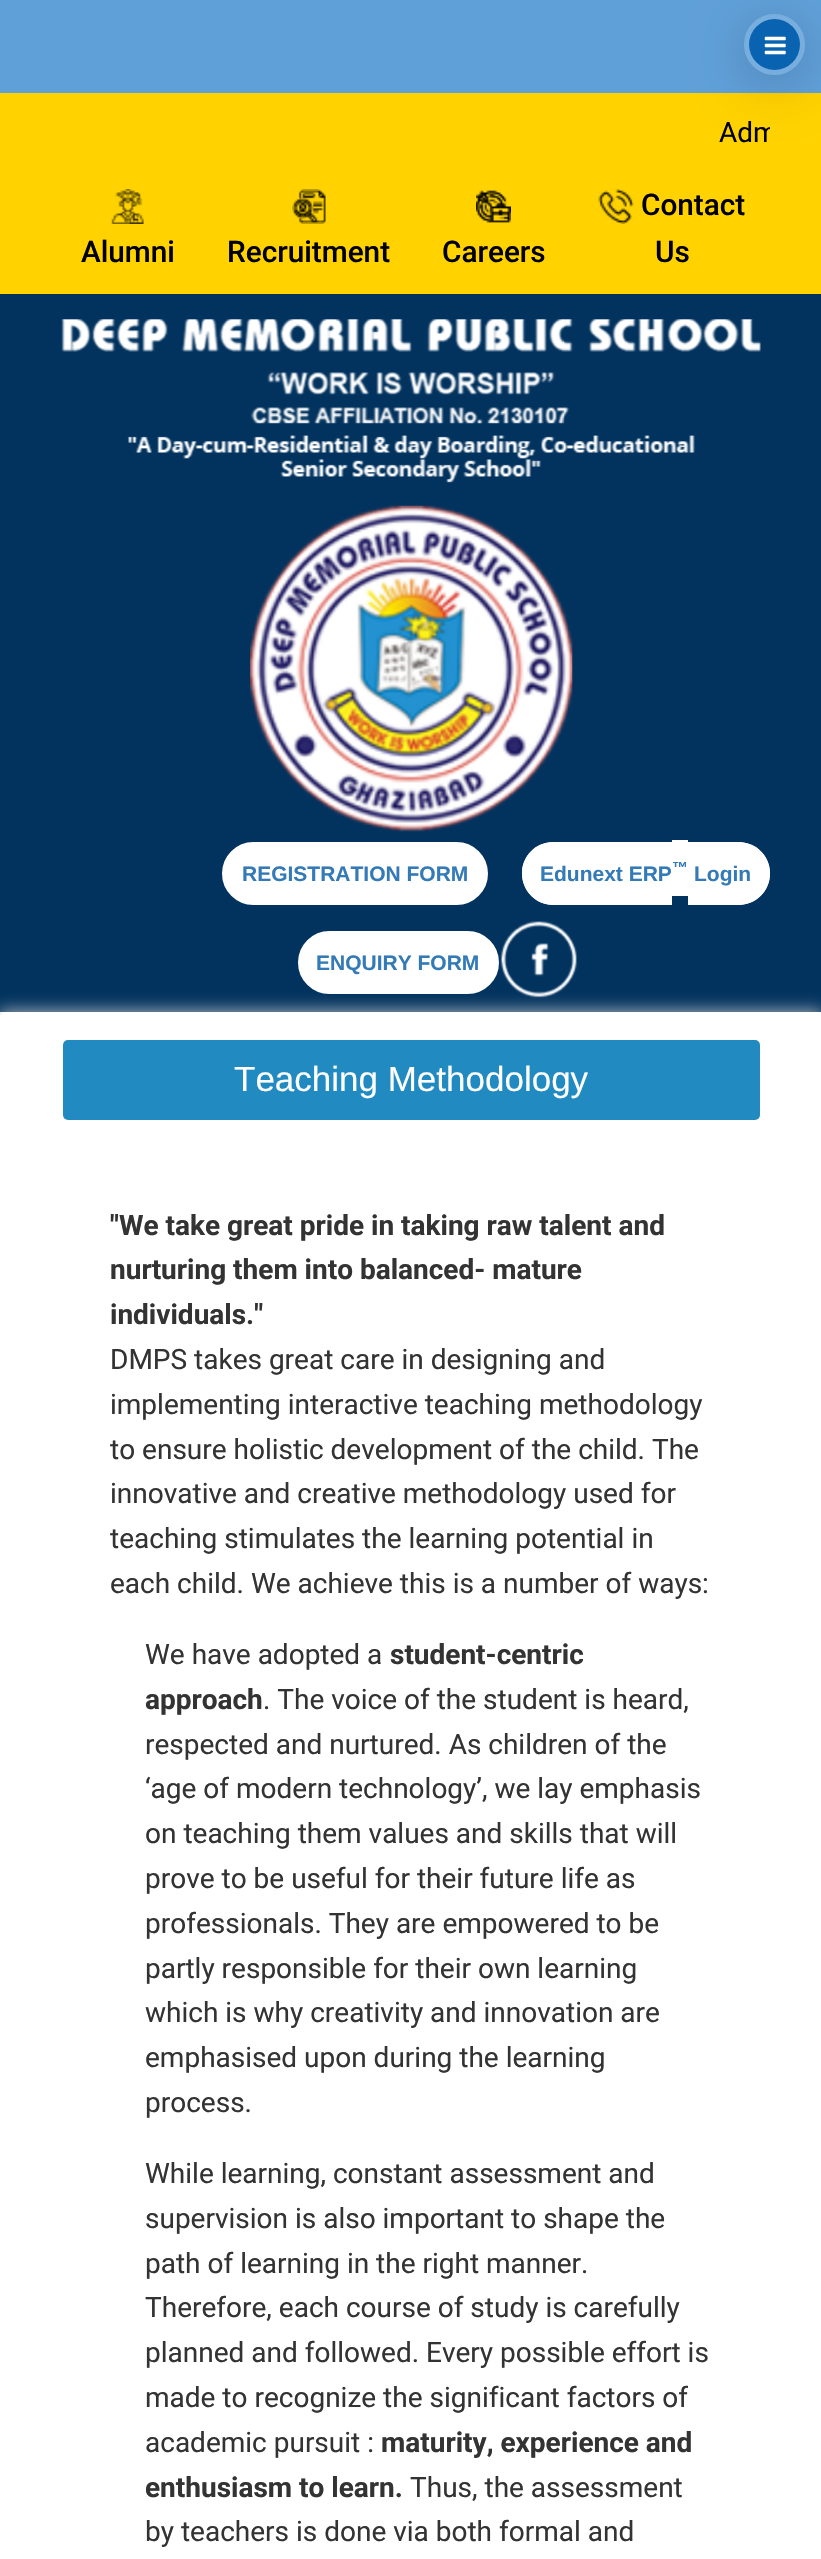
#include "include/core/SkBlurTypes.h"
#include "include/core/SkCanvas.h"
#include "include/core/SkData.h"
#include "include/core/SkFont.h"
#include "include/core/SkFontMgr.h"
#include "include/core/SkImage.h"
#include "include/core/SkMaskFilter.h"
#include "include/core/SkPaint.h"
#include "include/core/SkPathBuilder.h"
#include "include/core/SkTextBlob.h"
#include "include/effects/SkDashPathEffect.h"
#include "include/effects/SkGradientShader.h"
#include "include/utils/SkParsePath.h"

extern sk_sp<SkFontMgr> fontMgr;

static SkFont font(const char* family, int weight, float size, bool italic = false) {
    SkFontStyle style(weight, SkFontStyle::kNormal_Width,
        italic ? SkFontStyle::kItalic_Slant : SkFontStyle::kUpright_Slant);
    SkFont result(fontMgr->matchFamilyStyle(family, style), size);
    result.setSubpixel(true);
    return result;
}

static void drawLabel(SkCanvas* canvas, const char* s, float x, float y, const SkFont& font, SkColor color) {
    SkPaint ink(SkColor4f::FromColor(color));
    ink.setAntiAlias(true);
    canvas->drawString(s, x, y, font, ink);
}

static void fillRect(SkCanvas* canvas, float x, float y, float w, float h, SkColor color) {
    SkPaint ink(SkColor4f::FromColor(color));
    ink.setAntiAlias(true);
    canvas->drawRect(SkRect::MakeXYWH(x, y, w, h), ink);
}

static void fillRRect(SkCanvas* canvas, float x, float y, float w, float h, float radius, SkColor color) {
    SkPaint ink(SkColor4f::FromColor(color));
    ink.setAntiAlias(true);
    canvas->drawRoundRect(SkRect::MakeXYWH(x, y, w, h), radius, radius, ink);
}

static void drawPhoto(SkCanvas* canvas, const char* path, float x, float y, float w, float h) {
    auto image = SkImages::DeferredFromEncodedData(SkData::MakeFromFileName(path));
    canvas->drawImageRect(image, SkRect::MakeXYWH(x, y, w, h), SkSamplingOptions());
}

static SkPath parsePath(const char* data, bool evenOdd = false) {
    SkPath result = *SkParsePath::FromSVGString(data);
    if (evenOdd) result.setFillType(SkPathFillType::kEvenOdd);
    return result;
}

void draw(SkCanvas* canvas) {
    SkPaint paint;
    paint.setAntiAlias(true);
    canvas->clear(0xFFFFD200);
    fillRect(canvas, 0, 0, 821, 93, 0xFF60A0D9);
    canvas->save();
    canvas->clipPath(parsePath("M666 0H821V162H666ZM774.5 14C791.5 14 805 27.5 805 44.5C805 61.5 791.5 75 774.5 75C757.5 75 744 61.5 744 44.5C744 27.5 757.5 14 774.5 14Z", true), true);
    paint.setColor(0x30000000);
    paint.setMaskFilter(SkMaskFilter::MakeBlur(kNormal_SkBlurStyle, 25.5f));
    canvas->drawRoundRect(SkRect::MakeXYWH(744, 23, 61, 61), 30.5f, 30.5f, paint);
    paint.setMaskFilter(nullptr);
    canvas->restore();
    paint.setColor(0xFF0A63B1);
    canvas->drawCircle(774.5f, 44.5f, 25.5f, paint);
    paint.setStroke(true);
    paint.setStrokeWidth(5);
    paint.setColor(0x26FFFFFF);
    canvas->drawCircle(774.5f, 44.5f, 28, paint);
    drawPhoto(canvas, "assets/img1.png", 764, 36, 22, 19);
    canvas->save();
    canvas->clipRect(SkRect::MakeXYWH(53, 93, 717, 63));
    SkFont font1 = font("Roboto", 400, 28);
    drawLabel(canvas, "Adm", 719, 142, font1, 0xFF000000);
    canvas->restore();
    drawPhoto(canvas, "assets/img2.png", 111, 189, 33, 35);
    SkFont font2 = font("Roboto", 500, 29.75f);
    drawLabel(canvas, "Alumni", 81, 262, font2, 0xFF000000);
    drawPhoto(canvas, "assets/img3.png", 292, 189, 34, 35);
    drawLabel(canvas, "Recruitment", 227, 262, font2, 0xFF000000);
    drawPhoto(canvas, "assets/img4.png", 476, 190, 35, 33);
    drawLabel(canvas, "Careers", 442, 262, font2, 0xFF000000);
    drawPhoto(canvas, "assets/img5.png", 598, 189, 36, 35);
    drawLabel(canvas, "Contact", 641, 215, font2, 0xFF000000);
    drawLabel(canvas, "Us", 655, 262, font2, 0xFF000000);
    fillRect(canvas, 0, 294, 821, 718, 0xFF02335F);
    drawPhoto(canvas, "assets/img6.png", 61, 319, 700, 164);
    drawPhoto(canvas, "assets/img7.png", 250, 505, 323, 327);
    paint.setStroke(false);
    paint.setColor(0xFFFFFFFF);
    canvas->drawRoundRect(SkRect::MakeXYWH(223, 843, 264, 61), 30.5f, 30.5f, paint);
    paint.setStroke(true);
    paint.setStrokeWidth(2);
    canvas->drawRoundRect(SkRect::MakeXYWH(223, 843, 264, 61), 30.5f, 30.5f, paint);
    SkFont font3 = font("Liberation Sans", 700, 21);
    drawLabel(canvas, "REGISTRATION FORM", 242, 881, font3, 0xFF337AB7);
    paint.setStroke(false);
    canvas->drawPath(parsePath("M553.5 842H672V905H553.5C536 905 522 891 522 873.5C522 856 536 842 553.5 842Z"), paint);
    canvas->drawPath(parsePath("M553 842H672V905H553C536 905 522 891 522 873C522 856 536 842 553 842ZM553 844H672V903H553C537 903 523 890 523 873C523 857 537 844 553 844Z", true), paint);
    drawLabel(canvas, "Edunext ERP", 540, 881, font3, 0xFF337AB7);
    fillRect(canvas, 672, 840, 16, 56, 0xFFFFFFFF);
    SkFont font4 = font("Liberation Sans", 700, 16);
    drawLabel(canvas, "™", 672, 873, font4, 0xFF337AB7);
    canvas->drawPath(parsePath("M688 842H738.5C756 842 770 856 770 873.5C770 891 756 905 738.5 905H688Z"), paint);
    canvas->drawPath(parsePath("M688 842H738C756 842 770 856 770 873C770 891 756 905 738 905H688ZM688 844H738C755 844 768 857 768 873C768 890 755 903 738 903H688Z", true), paint);
    drawLabel(canvas, "Login", 694, 881, font3, 0xFF337AB7);
    canvas->drawRoundRect(SkRect::MakeXYWH(299, 932, 199, 61), 30.5f, 30.5f, paint);
    paint.setStroke(true);
    canvas->drawRoundRect(SkRect::MakeXYWH(299, 932, 199, 61), 30.5f, 30.5f, paint);
    drawLabel(canvas, "ENQUIRY FORM", 316, 970, font3, 0xFF337AB7);
    drawPhoto(canvas, "assets/img8.png", 500, 921, 77, 77);
    fillRect(canvas, 0, 1012, 821, 5, 0xFFFDFDFD);
    paint.setStroke(false);
    paint.setColor(0xBDD2D1D1);
    paint.setMaskFilter(SkMaskFilter::MakeBlur(kNormal_SkBlurStyle, 8));
    canvas->drawRoundRect(SkRect::MakeXYWH(-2, 1010, 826, 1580), 7, 7, paint);
    paint.setMaskFilter(nullptr);
    fillRRect(canvas, 0, 1012, 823, 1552, 5, 0xFFFFFFFF);
    fillRRect(canvas, 63, 1040, 697, 80, 5, 0xFF218BC1);
    SkFont font5 = font("Liberation Sans", 400, 35);
    drawLabel(canvas, "Teaching Methodology", 234, 1091, font5, 0xFFFFFFFF);
    SkFont font6 = font("Roboto", 700, 28);
    drawLabel(canvas, "\"We take great pride in taking raw talent and", 110, 1235, font6, 0xFF333333);
    drawLabel(canvas, "nurturing them into balanced- mature", 110, 1279, font6, 0xFF333333);
    drawLabel(canvas, "individuals.\"", 110, 1324, font6, 0xFF333333);
    drawLabel(canvas, "DMPS takes great care in designing and", 110, 1369, font1, 0xFF333333);
    drawLabel(canvas, "implementing interactive teaching methodology", 110, 1414, font1, 0xFF333333);
    drawLabel(canvas, "to ensure holistic development of the child. The", 110, 1459, font1, 0xFF333333);
    drawLabel(canvas, "innovative and creative methodology used for", 110, 1503, font1, 0xFF333333);
    drawLabel(canvas, "teaching stimulates the learning potential in", 110, 1548, font1, 0xFF333333);
    drawLabel(canvas, "each child. We achieve this is a number of ways:", 110, 1593, font1, 0xFF333333);
    drawLabel(canvas, "We have adopted a", 145, 1664, font1, 0xFF333333);
    drawLabel(canvas, "student-centric", 390, 1664, font6, 0xFF333333);
    drawLabel(canvas, "approach", 145, 1709, font6, 0xFF333333);
    drawLabel(canvas, ". The voice of the student is heard,", 263, 1709, font1, 0xFF333333);
    drawLabel(canvas, "respected and nurtured. As children of the", 145, 1754, font1, 0xFF333333);
    drawLabel(canvas, "‘age of modern technology’, we lay emphasis", 145, 1798, font1, 0xFF333333);
    drawLabel(canvas, "on teaching them values and skills that will", 145, 1843, font1, 0xFF333333);
    drawLabel(canvas, "prove to be useful for their future life as", 145, 1888, font1, 0xFF333333);
    drawLabel(canvas, "professionals. They are empowered to be", 145, 1933, font1, 0xFF333333);
    drawLabel(canvas, "partly responsible for their own learning", 145, 1978, font1, 0xFF333333);
    drawLabel(canvas, "which is why creativity and innovation are", 145, 2022, font1, 0xFF333333);
    drawLabel(canvas, "emphasised upon during the learning", 145, 2067, font1, 0xFF333333);
    drawLabel(canvas, "process.", 145, 2112, font1, 0xFF333333);
    drawLabel(canvas, "While learning, constant assessment and", 145, 2183, font1, 0xFF333333);
    drawLabel(canvas, "supervision is also important to shape the", 145, 2228, font1, 0xFF333333);
    drawLabel(canvas, "path of learning in the right manner.", 145, 2273, font1, 0xFF333333);
    drawLabel(canvas, "Therefore, each course of study is carefully", 145, 2317, font1, 0xFF333333);
    drawLabel(canvas, "planned and followed. Every possible effort is", 145, 2362, font1, 0xFF333333);
    drawLabel(canvas, "made to recognize the significant factors of", 145, 2407, font1, 0xFF333333);
    drawLabel(canvas, "academic pursuit :", 145, 2452, font1, 0xFF333333);
    drawLabel(canvas, "maturity, experience and", 381, 2452, font6, 0xFF333333);
    drawLabel(canvas, "enthusiasm to learn.", 145, 2497, font6, 0xFF333333);
    drawLabel(canvas, "Thus, the assessment", 410, 2497, font1, 0xFF333333);
    drawLabel(canvas, "by teachers is done via both formal and", 145, 2541, font1, 0xFF333333);
}
